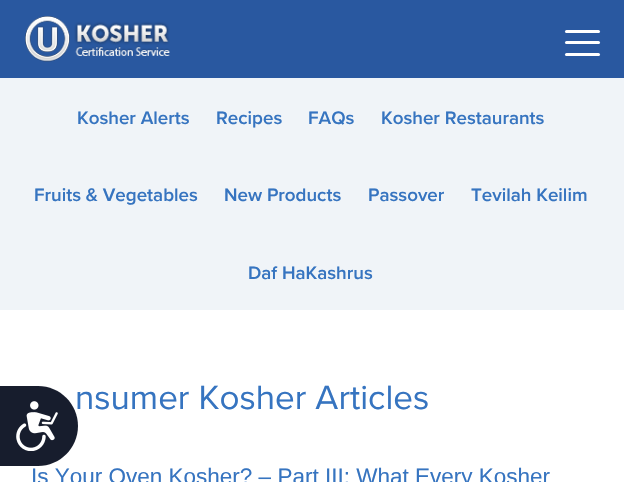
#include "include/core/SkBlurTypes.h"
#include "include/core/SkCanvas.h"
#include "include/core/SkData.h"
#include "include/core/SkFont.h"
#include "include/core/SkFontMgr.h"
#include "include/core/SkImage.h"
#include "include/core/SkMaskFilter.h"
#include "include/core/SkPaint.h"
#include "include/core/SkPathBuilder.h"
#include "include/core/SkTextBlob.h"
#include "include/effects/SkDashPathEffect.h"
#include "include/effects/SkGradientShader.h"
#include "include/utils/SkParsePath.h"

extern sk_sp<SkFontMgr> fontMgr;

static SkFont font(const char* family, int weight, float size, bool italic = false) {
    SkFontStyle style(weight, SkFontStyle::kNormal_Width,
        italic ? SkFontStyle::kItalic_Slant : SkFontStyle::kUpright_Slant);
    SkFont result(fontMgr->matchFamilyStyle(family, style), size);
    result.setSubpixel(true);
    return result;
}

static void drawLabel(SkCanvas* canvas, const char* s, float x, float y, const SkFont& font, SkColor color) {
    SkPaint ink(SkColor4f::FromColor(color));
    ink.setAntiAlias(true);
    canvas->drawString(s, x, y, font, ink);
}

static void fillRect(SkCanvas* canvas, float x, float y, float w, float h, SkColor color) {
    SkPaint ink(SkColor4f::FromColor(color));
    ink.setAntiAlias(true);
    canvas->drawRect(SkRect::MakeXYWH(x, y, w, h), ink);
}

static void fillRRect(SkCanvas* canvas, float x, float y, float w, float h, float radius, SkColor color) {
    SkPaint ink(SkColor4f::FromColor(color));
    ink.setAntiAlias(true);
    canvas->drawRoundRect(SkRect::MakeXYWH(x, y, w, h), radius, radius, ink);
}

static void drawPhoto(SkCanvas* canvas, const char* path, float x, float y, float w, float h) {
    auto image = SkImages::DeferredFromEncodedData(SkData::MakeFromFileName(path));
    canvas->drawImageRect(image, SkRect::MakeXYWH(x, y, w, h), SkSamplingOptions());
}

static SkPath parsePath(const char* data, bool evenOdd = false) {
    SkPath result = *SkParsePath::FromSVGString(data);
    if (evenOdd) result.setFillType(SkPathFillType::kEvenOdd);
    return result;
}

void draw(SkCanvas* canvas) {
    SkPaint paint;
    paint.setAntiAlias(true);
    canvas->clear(0xFFFFFFFF);
    fillRect(canvas, 0, 0, 624, 78, 0xFF2958A0);
    drawPhoto(canvas, "assets/img1.png", 25, 16, 145, 46);
    fillRRect(canvas, 565, 30, 35, 3, 1.5f, 0xFFFFFFFF);
    fillRRect(canvas, 565, 41, 35, 3, 1.5f, 0xFFFFFFFF);
    fillRRect(canvas, 565, 53, 35, 3, 1.5f, 0xFFFFFFFF);
    fillRect(canvas, 0, 78, 624, 232, 0xFFF0F4F8);
    SkFont font1 = font("Proxima Nova", 600, 18.75f);
    drawLabel(canvas, "Kosher Alerts", 77, 124, font1, 0xFF3674C0);
    drawLabel(canvas, "Recipes", 216, 124, font1, 0xFF3674C0);
    drawLabel(canvas, "FAQs", 308, 124, font1, 0xFF3674C0);
    drawLabel(canvas, "Kosher Restaurants", 381, 124, font1, 0xFF3674C0);
    drawLabel(canvas, "Fruits & Vegetables", 34, 201, font1, 0xFF3674C0);
    drawLabel(canvas, "New Products", 224, 201, font1, 0xFF3674C0);
    drawLabel(canvas, "Passover", 368, 201, font1, 0xFF3674C0);
    drawLabel(canvas, "Tevilah Keilim", 471, 201, font1, 0xFF3674C0);
    drawLabel(canvas, "Daf HaKashrus", 248, 279, font1, 0xFF3674C0);
    SkFont font2 = font("Proxima Nova", 400, 35);
    drawLabel(canvas, "nsumer Kosher Articles", 75, 409, font2, 0xFF3674C0);
    SkFont font3 = font("Liberation Sans", 400, 22.5f);
    drawLabel(canvas, "Is Your Oven Kosher? – Part III: What Every Kosher", 31, 484, font3, 0xFF3674C0);
    paint.setColor(0xFF171D2D);
    canvas->drawPath(parsePath("M0 386H38C60 386 78 404 78 426C78 448 60 466 38 466H0Z"), paint);
    drawPhoto(canvas, "assets/img2.png", 16, 401, 42, 50);
}
